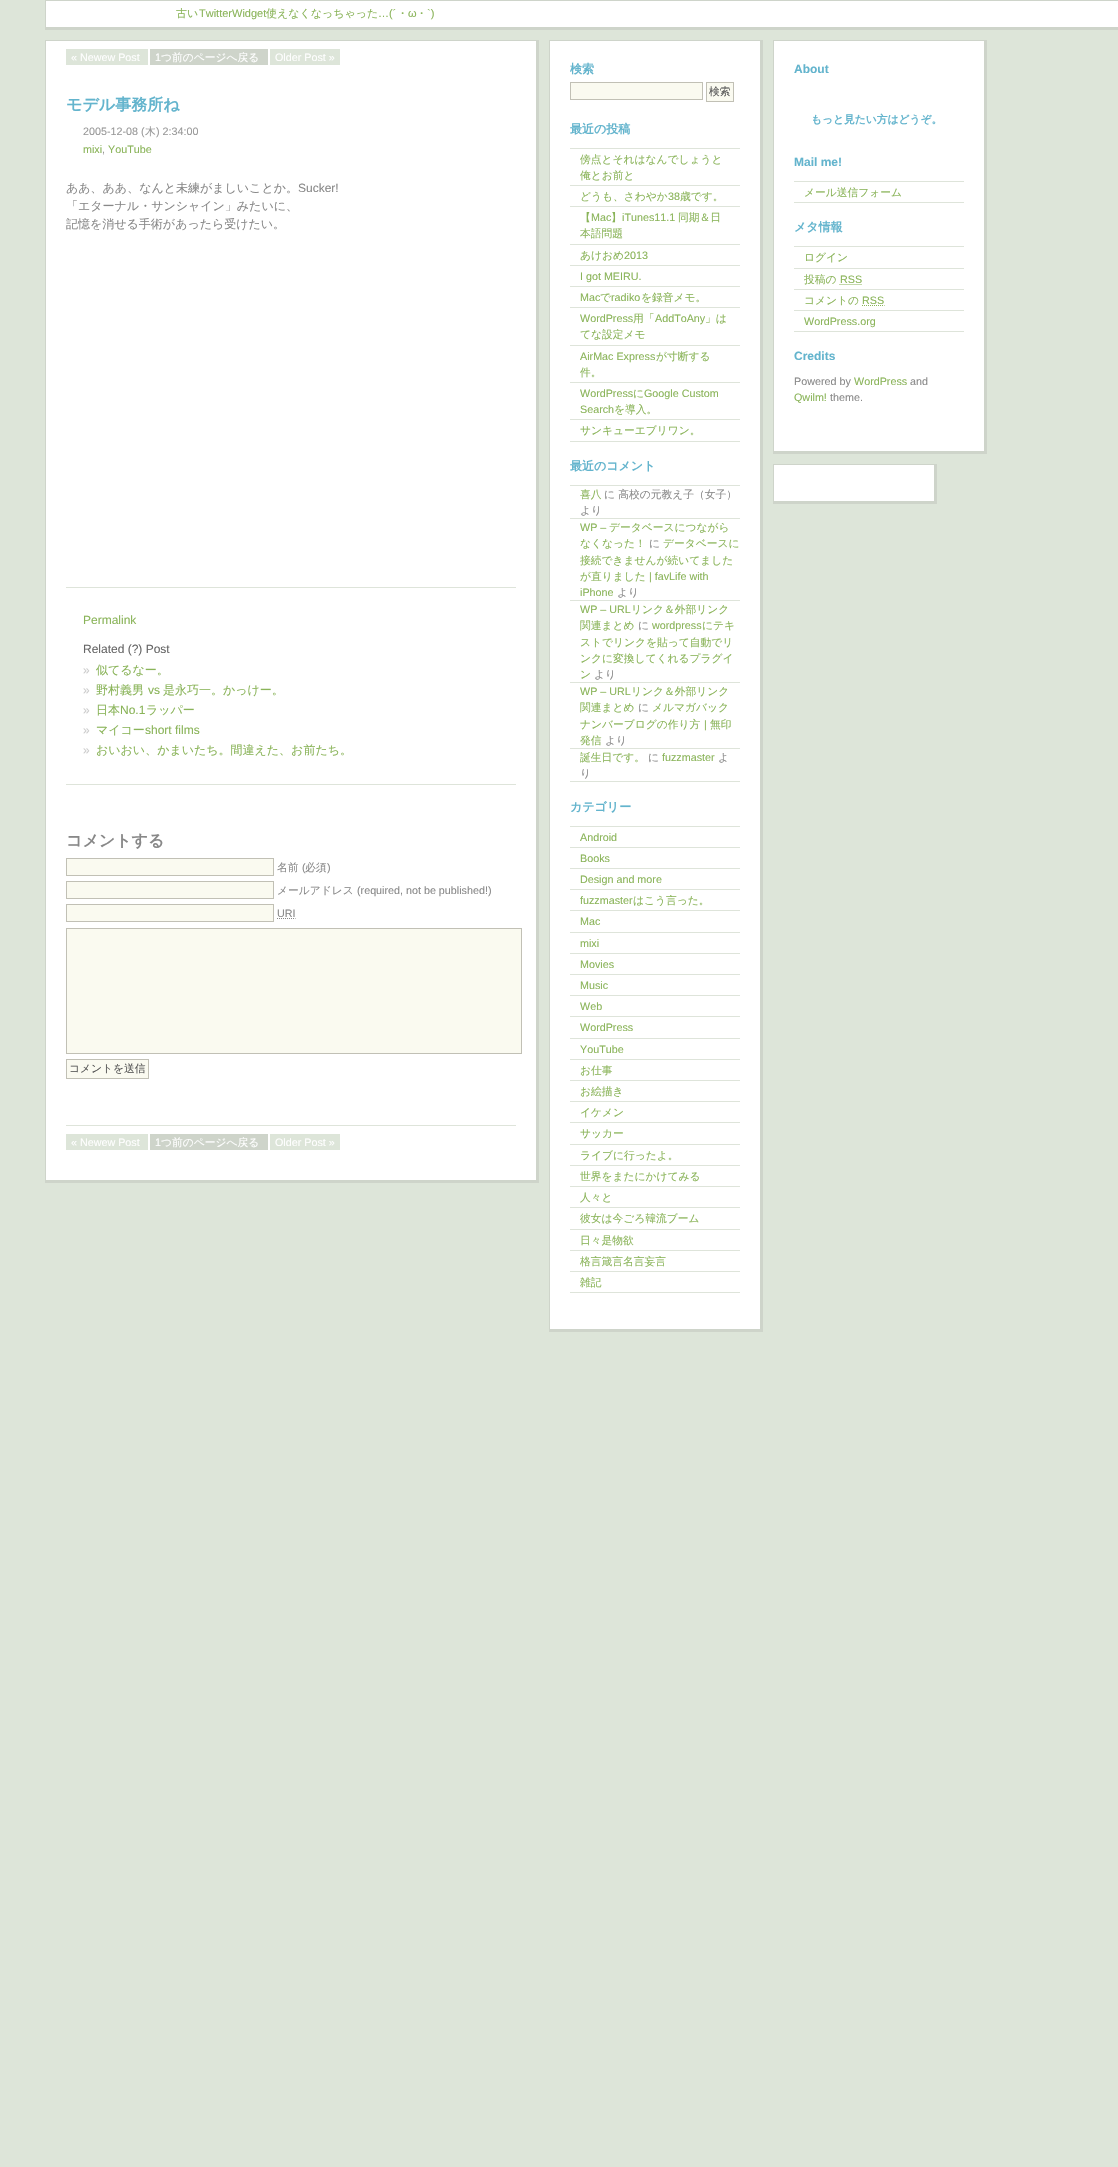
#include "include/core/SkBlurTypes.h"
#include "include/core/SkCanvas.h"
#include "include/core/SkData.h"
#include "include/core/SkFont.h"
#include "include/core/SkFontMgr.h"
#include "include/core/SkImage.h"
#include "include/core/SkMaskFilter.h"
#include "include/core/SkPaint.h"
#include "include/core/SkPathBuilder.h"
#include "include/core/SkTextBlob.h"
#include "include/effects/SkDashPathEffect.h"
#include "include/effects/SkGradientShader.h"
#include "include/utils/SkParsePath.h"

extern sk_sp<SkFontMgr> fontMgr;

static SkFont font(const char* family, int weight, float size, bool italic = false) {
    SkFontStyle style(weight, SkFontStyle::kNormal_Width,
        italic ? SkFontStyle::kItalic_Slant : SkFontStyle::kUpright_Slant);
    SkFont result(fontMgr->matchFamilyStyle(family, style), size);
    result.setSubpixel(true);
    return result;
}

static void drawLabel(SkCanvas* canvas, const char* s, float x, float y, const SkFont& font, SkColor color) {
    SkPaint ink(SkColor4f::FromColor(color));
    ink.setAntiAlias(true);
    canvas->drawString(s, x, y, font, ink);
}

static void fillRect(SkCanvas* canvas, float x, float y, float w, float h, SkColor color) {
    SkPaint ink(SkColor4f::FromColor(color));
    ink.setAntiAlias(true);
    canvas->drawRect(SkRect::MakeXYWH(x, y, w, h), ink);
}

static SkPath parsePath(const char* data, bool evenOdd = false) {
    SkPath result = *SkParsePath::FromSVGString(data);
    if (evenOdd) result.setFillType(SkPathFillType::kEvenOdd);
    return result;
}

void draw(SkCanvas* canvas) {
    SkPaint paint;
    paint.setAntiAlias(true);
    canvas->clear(0xFFDDE5D9);
    fillRect(canvas, 46, 1, 1072, 26, 0xFFFFFFFF);
    fillRect(canvas, 45, 0, 1073, 1, 0xFFCED4CA);
    fillRect(canvas, 45, 27, 1073, 3, 0xFFCED4CA);
    fillRect(canvas, 45, 0, 1, 30, 0xFFCED4CA);
    SkFont font1 = font("WenQuanYi Zen Hei", 500, 11);
    drawLabel(canvas, "古い", 176, 17, font1, 0xFF8AB459);
    SkFont font2 = font("Liberation Sans", 400, 11);
    drawLabel(canvas, "TwitterWidget", 199, 17, font2, 0xFF8AB459);
    drawLabel(canvas, "使えなくなっちゃった", 266, 17, font1, 0xFF8AB459);
    drawLabel(canvas, "…(´", 378, 17, font2, 0xFF8AB459);
    drawLabel(canvas, "・", 397, 17, font1, 0xFF8AB459);
    drawLabel(canvas, "ω", 408, 17, font2, 0xFF8AB459);
    drawLabel(canvas, "・", 416, 17, font1, 0xFF8AB459);
    drawLabel(canvas, "`)", 427, 17, font2, 0xFF8AB459);
    fillRect(canvas, 46, 41, 490, 1139, 0xFFFFFFFF);
    fillRect(canvas, 45, 40, 494, 1, 0xFFCED4CA);
    fillRect(canvas, 536, 40, 3, 1143, 0xFFCED4CA);
    fillRect(canvas, 45, 1180, 494, 3, 0xFFCED4CA);
    fillRect(canvas, 45, 40, 1, 1143, 0xFFCED4CA);
    fillRect(canvas, 66, 49, 82, 16, 0xFFDDE5D9);
    SkFont font3 = font("Liberation Sans", 400, 10.75f);
    drawLabel(canvas, "« Newew Post", 71, 61, font3, 0xFFFFFFFF);
    fillRect(canvas, 150, 49, 118, 16, 0xFFCED4CA);
    drawLabel(canvas, "1", 155, 61, font3, 0xFFFFFFFF);
    SkFont font4 = font("WenQuanYi Zen Hei", 500, 10.75f);
    drawLabel(canvas, "つ前のページへ戻る", 161, 61, font4, 0xFFFFFFFF);
    fillRect(canvas, 270, 49, 70, 16, 0xFFDDE5D9);
    drawLabel(canvas, "Older Post »", 275, 61, font3, 0xFFFFFFFF);
    fillRect(canvas, 66, 587, 450, 1, 0xFFDEE4DA);
    SkFont font5 = font("WenQuanYi Zen Hei", 700, 16);
    drawLabel(canvas, "モデル事務所ね", 66, 110, font5, 0xFF63B4CD);
    drawLabel(canvas, "2005-12-08 (", 83, 135, font3, 0xFF999999);
    drawLabel(canvas, "木", 145, 135, font4, 0xFF999999);
    drawLabel(canvas, ") 2:34:00", 156, 135, font3, 0xFF999999);
    drawLabel(canvas, "mixi", 83, 153, font3, 0xFF8AB459);
    drawLabel(canvas, ",", 102, 153, font3, 0xFF999999);
    drawLabel(canvas, "YouTube", 108, 153, font3, 0xFF8AB459);
    SkFont font6 = font("WenQuanYi Zen Hei", 500, 12);
    drawLabel(canvas, "ああ、ああ、なんと未練がましいことか。", 66, 192, font6, 0xFF888888);
    SkFont font7 = font("Liberation Sans", 400, 12);
    drawLabel(canvas, "Sucker!", 298, 192, font7, 0xFF888888);
    drawLabel(canvas, "「エターナル・サンシャイン」みたいに、", 66, 210, font6, 0xFF888888);
    drawLabel(canvas, "記憶を消せる手術があったら受けたい。", 66, 228, font6, 0xFF888888);
    fillRect(canvas, 66, 784, 450, 1, 0xFFDEE4DA);
    drawLabel(canvas, "Permalink", 83, 624, font7, 0xFF8AB459);
    drawLabel(canvas, "Related (?) Post", 83, 653, font7, 0xFF666666);
    drawLabel(canvas, "»", 83, 674, font7, 0xFFCCCCCC);
    drawLabel(canvas, "似てるなー。", 96, 674, font6, 0xFF8AB459);
    drawLabel(canvas, "»", 83, 694, font7, 0xFFCCCCCC);
    drawLabel(canvas, "野村義男", 96, 694, font6, 0xFF8AB459);
    drawLabel(canvas, "vs", 148, 694, font7, 0xFF8AB459);
    drawLabel(canvas, "是永巧一。かっけー。", 163, 694, font6, 0xFF8AB459);
    drawLabel(canvas, "»", 83, 714, font7, 0xFFCCCCCC);
    drawLabel(canvas, "日本", 96, 714, font6, 0xFF8AB459);
    drawLabel(canvas, "No.1", 120, 714, font7, 0xFF8AB459);
    drawLabel(canvas, "ラッパー", 146, 714, font6, 0xFF8AB459);
    drawLabel(canvas, "»", 83, 734, font7, 0xFFCCCCCC);
    drawLabel(canvas, "マイコー", 96, 734, font6, 0xFF8AB459);
    drawLabel(canvas, "short films", 145, 734, font7, 0xFF8AB459);
    drawLabel(canvas, "»", 83, 754, font7, 0xFFCCCCCC);
    drawLabel(canvas, "おいおい、かまいたち。間違えた、お前たち。", 96, 754, font6, 0xFF8AB459);
    fillRect(canvas, 66, 1125, 450, 1, 0xFFDEE4DA);
    drawLabel(canvas, "コメントする", 66, 846, font5, 0xFF888888);
    paint.setColor(0xFFFAFAF0);
    canvas->drawRect(SkRect::MakeXYWH(66.5f, 858.5f, 207, 17), paint);
    paint.setStroke(true);
    paint.setStrokeWidth(1);
    paint.setColor(0xFFC1C0B5);
    canvas->drawRect(SkRect::MakeXYWH(66.5f, 858.5f, 207, 17), paint);
    drawLabel(canvas, "名前", 277, 871, font4, 0xFF888888);
    drawLabel(canvas, "(", 302, 871, font3, 0xFF888888);
    drawLabel(canvas, "必須", 305, 871, font4, 0xFF888888);
    drawLabel(canvas, ")", 327, 871, font3, 0xFF888888);
    paint.setStroke(false);
    paint.setColor(0xFFFAFAF0);
    canvas->drawRect(SkRect::MakeXYWH(66.5f, 881.5f, 207, 17), paint);
    paint.setStroke(true);
    paint.setColor(0xFFC1C0B5);
    canvas->drawRect(SkRect::MakeXYWH(66.5f, 881.5f, 207, 17), paint);
    drawLabel(canvas, "メールアドレス", 277, 894, font4, 0xFF888888);
    drawLabel(canvas, "(required, not be published!)", 357, 894, font3, 0xFF888888);
    paint.setStroke(false);
    paint.setColor(0xFFFAFAF0);
    canvas->drawRect(SkRect::MakeXYWH(66.5f, 904.5f, 207, 17), paint);
    paint.setStroke(true);
    paint.setColor(0xFFC1C0B5);
    canvas->drawRect(SkRect::MakeXYWH(66.5f, 904.5f, 207, 17), paint);
    drawLabel(canvas, "URI", 277, 917, font3, 0xFF888888);
    paint.setColor(0xFF888888);
    paint.setPathEffect(SkDashPathEffect::Make({{1, 1}}, 0));
    canvas->drawPath(parsePath("M277 918.5H295.5"), paint);
    paint.setPathEffect(nullptr);
    paint.setStroke(false);
    paint.setColor(0xFFFAFAF0);
    canvas->drawRect(SkRect::MakeXYWH(66.5f, 928.5f, 455, 125), paint);
    paint.setStroke(true);
    paint.setColor(0xFFC1C0B5);
    canvas->drawRect(SkRect::MakeXYWH(66.5f, 928.5f, 455, 125), paint);
    paint.setStroke(false);
    paint.setColor(0xFFFAFAF0);
    canvas->drawRect(SkRect::MakeXYWH(66.5f, 1059.5f, 82, 19), paint);
    paint.setStroke(true);
    paint.setColor(0xFFC1C0B5);
    canvas->drawRect(SkRect::MakeXYWH(66.5f, 1059.5f, 82, 19), paint);
    drawLabel(canvas, "コメントを送信", 69, 1072, font4, 0xFF555555);
    fillRect(canvas, 66, 1134, 82, 16, 0xFFDDE5D9);
    drawLabel(canvas, "« Newew Post", 71, 1146, font3, 0xFFFFFFFF);
    fillRect(canvas, 150, 1134, 118, 16, 0xFFCED4CA);
    drawLabel(canvas, "1", 155, 1146, font3, 0xFFFFFFFF);
    drawLabel(canvas, "つ前のページへ戻る", 161, 1146, font4, 0xFFFFFFFF);
    fillRect(canvas, 270, 1134, 70, 16, 0xFFDDE5D9);
    drawLabel(canvas, "Older Post »", 275, 1146, font3, 0xFFFFFFFF);
    fillRect(canvas, 550, 41, 210, 1288, 0xFFFFFFFF);
    fillRect(canvas, 549, 40, 214, 1, 0xFFCED4CA);
    fillRect(canvas, 760, 40, 3, 1292, 0xFFCED4CA);
    fillRect(canvas, 549, 1329, 214, 3, 0xFFCED4CA);
    fillRect(canvas, 549, 40, 1, 1292, 0xFFCED4CA);
    SkFont font8 = font("WenQuanYi Zen Hei", 700, 12);
    drawLabel(canvas, "検索", 570, 73, font8, 0xFF63B4CD);
    paint.setStroke(false);
    paint.setColor(0xFFFAFAF0);
    canvas->drawRect(SkRect::MakeXYWH(570.5f, 82.5f, 132, 17), paint);
    paint.setStroke(true);
    paint.setColor(0xFFC1C0B5);
    canvas->drawRect(SkRect::MakeXYWH(570.5f, 82.5f, 132, 17), paint);
    paint.setStroke(false);
    paint.setColor(0xFFFAFAF0);
    canvas->drawRect(SkRect::MakeXYWH(706.5f, 82.5f, 27, 19), paint);
    paint.setStroke(true);
    paint.setColor(0xFFC1C0B5);
    canvas->drawRect(SkRect::MakeXYWH(706.5f, 82.5f, 27, 19), paint);
    drawLabel(canvas, "検索", 709, 95, font4, 0xFF555555);
    drawLabel(canvas, "最近の投稿", 570, 133, font8, 0xFF63B4CD);
    fillRect(canvas, 570, 148, 170, 1, 0xFFDEE4DA);
    fillRect(canvas, 570, 185, 170, 1, 0xFFDEE4DA);
    drawLabel(canvas, "傍点とそれはなんでしょうと", 580, 163, font4, 0xFF8AB459);
    drawLabel(canvas, "俺とお前と", 580, 179, font4, 0xFF8AB459);
    fillRect(canvas, 570, 206, 170, 1, 0xFFDEE4DA);
    drawLabel(canvas, "どうも、さわやか", 580, 200, font4, 0xFF8AB459);
    drawLabel(canvas, "38", 668, 200, font3, 0xFF8AB459);
    drawLabel(canvas, "歳です。", 680, 200, font4, 0xFF8AB459);
    fillRect(canvas, 570, 244, 170, 1, 0xFFDEE4DA);
    drawLabel(canvas, "【", 580, 221, font4, 0xFF8AB459);
    drawLabel(canvas, "Mac", 591, 221, font3, 0xFF8AB459);
    drawLabel(canvas, "】", 611, 221, font4, 0xFF8AB459);
    drawLabel(canvas, "iTunes11.1", 622, 221, font3, 0xFF8AB459);
    drawLabel(canvas, "同期＆日", 678, 221, font4, 0xFF8AB459);
    drawLabel(canvas, "本語問題", 580, 237, font4, 0xFF8AB459);
    fillRect(canvas, 570, 265, 170, 1, 0xFFDEE4DA);
    drawLabel(canvas, "あけおめ", 580, 259, font4, 0xFF8AB459);
    drawLabel(canvas, "2013", 624, 259, font3, 0xFF8AB459);
    fillRect(canvas, 570, 286, 170, 1, 0xFFDEE4DA);
    drawLabel(canvas, "I got MEIRU.", 580, 280, font3, 0xFF8AB459);
    fillRect(canvas, 570, 307, 170, 1, 0xFFDEE4DA);
    drawLabel(canvas, "Mac", 580, 301, font3, 0xFF8AB459);
    drawLabel(canvas, "で", 600, 301, font4, 0xFF8AB459);
    drawLabel(canvas, "radiko", 611, 301, font3, 0xFF8AB459);
    drawLabel(canvas, "を録音メモ。", 641, 301, font4, 0xFF8AB459);
    fillRect(canvas, 570, 345, 170, 1, 0xFFDEE4DA);
    drawLabel(canvas, "WordPress", 580, 322, font3, 0xFF8AB459);
    drawLabel(canvas, "用「", 633, 322, font4, 0xFF8AB459);
    drawLabel(canvas, "AddToAny", 655, 322, font3, 0xFF8AB459);
    drawLabel(canvas, "」は", 705, 322, font4, 0xFF8AB459);
    drawLabel(canvas, "てな設定メモ", 580, 338, font4, 0xFF8AB459);
    fillRect(canvas, 570, 382, 170, 1, 0xFFDEE4DA);
    drawLabel(canvas, "AirMac Express", 580, 360, font3, 0xFF8AB459);
    drawLabel(canvas, "が寸断する", 656, 360, font4, 0xFF8AB459);
    drawLabel(canvas, "件。", 580, 376, font4, 0xFF8AB459);
    fillRect(canvas, 570, 419, 170, 1, 0xFFDEE4DA);
    drawLabel(canvas, "WordPress", 580, 397, font3, 0xFF8AB459);
    drawLabel(canvas, "に", 633, 397, font4, 0xFF8AB459);
    drawLabel(canvas, "Google Custom", 644, 397, font3, 0xFF8AB459);
    drawLabel(canvas, "Search", 580, 413, font3, 0xFF8AB459);
    drawLabel(canvas, "を導入。", 614, 413, font4, 0xFF8AB459);
    fillRect(canvas, 570, 441, 170, 1, 0xFFDEE4DA);
    drawLabel(canvas, "サンキューエブリワン。", 580, 434, font4, 0xFF8AB459);
    drawLabel(canvas, "最近のコメント", 570, 470, font8, 0xFF63B4CD);
    fillRect(canvas, 570, 485, 170, 1, 0xFFDEE4DA);
    fillRect(canvas, 570, 518, 170, 1, 0xFFDEE4DA);
    drawLabel(canvas, "喜八", 580, 498, font4, 0xFF8AB459);
    drawLabel(canvas, "に 高校の元教え子（女子）", 604, 498, font4, 0xFF888888);
    drawLabel(canvas, "より", 580, 514, font4, 0xFF888888);
    fillRect(canvas, 570, 600, 170, 1, 0xFFDEE4DA);
    drawLabel(canvas, "WP –", 580, 531, font3, 0xFF8AB459);
    drawLabel(canvas, "データベースにつながら", 609, 531, font4, 0xFF8AB459);
    drawLabel(canvas, "なくなった！", 580, 547, font4, 0xFF8AB459);
    drawLabel(canvas, "に", 649, 547, font4, 0xFF888888);
    drawLabel(canvas, "データベースに", 663, 547, font4, 0xFF8AB459);
    drawLabel(canvas, "接続できませんが続いてました", 580, 564, font4, 0xFF8AB459);
    drawLabel(canvas, "が直りました", 580, 580, font4, 0xFF8AB459);
    drawLabel(canvas, "| favLife with", 649, 580, font3, 0xFF8AB459);
    drawLabel(canvas, "iPhone", 580, 596, font3, 0xFF8AB459);
    drawLabel(canvas, "より", 617, 596, font4, 0xFF888888);
    fillRect(canvas, 570, 682, 170, 1, 0xFFDEE4DA);
    drawLabel(canvas, "WP – URL", 580, 613, font3, 0xFF8AB459);
    drawLabel(canvas, "リンク＆外部リンク", 631, 613, font4, 0xFF8AB459);
    drawLabel(canvas, "関連まとめ", 580, 629, font4, 0xFF8AB459);
    drawLabel(canvas, "に", 638, 629, font4, 0xFF888888);
    drawLabel(canvas, "wordpress", 652, 629, font3, 0xFF8AB459);
    drawLabel(canvas, "にテキ", 702, 629, font4, 0xFF8AB459);
    drawLabel(canvas, "ストでリンクを貼って自動でリ", 580, 646, font4, 0xFF8AB459);
    drawLabel(canvas, "ンクに変換してくれるプラグイ", 580, 662, font4, 0xFF8AB459);
    drawLabel(canvas, "ン", 580, 678, font4, 0xFF8AB459);
    drawLabel(canvas, "より", 594, 678, font4, 0xFF888888);
    fillRect(canvas, 570, 748, 170, 1, 0xFFDEE4DA);
    drawLabel(canvas, "WP – URL", 580, 695, font3, 0xFF8AB459);
    drawLabel(canvas, "リンク＆外部リンク", 631, 695, font4, 0xFF8AB459);
    drawLabel(canvas, "関連まとめ", 580, 711, font4, 0xFF8AB459);
    drawLabel(canvas, "に", 638, 711, font4, 0xFF888888);
    drawLabel(canvas, "メルマガバック", 652, 711, font4, 0xFF8AB459);
    drawLabel(canvas, "ナンバーブログの作り方", 580, 728, font4, 0xFF8AB459);
    drawLabel(canvas, "|", 704, 728, font3, 0xFF8AB459);
    drawLabel(canvas, "無印", 710, 728, font4, 0xFF8AB459);
    drawLabel(canvas, "発信", 580, 744, font4, 0xFF8AB459);
    drawLabel(canvas, "より", 605, 744, font4, 0xFF888888);
    fillRect(canvas, 570, 781, 170, 1, 0xFFDEE4DA);
    drawLabel(canvas, "誕生日です。", 580, 761, font4, 0xFF8AB459);
    drawLabel(canvas, "に", 648, 761, font4, 0xFF888888);
    drawLabel(canvas, "fuzzmaster", 662, 761, font3, 0xFF8AB459);
    drawLabel(canvas, "よ", 718, 761, font4, 0xFF888888);
    drawLabel(canvas, "り", 580, 777, font4, 0xFF888888);
    drawLabel(canvas, "カテゴリー", 570, 811, font8, 0xFF63B4CD);
    fillRect(canvas, 570, 826, 170, 1, 0xFFDEE4DA);
    fillRect(canvas, 570, 847, 170, 1, 0xFFDEE4DA);
    drawLabel(canvas, "Android", 580, 841, font3, 0xFF8AB459);
    fillRect(canvas, 570, 868, 170, 1, 0xFFDEE4DA);
    drawLabel(canvas, "Books", 580, 862, font3, 0xFF8AB459);
    fillRect(canvas, 570, 889, 170, 1, 0xFFDEE4DA);
    drawLabel(canvas, "Design and more", 580, 883, font3, 0xFF8AB459);
    fillRect(canvas, 570, 910, 170, 1, 0xFFDEE4DA);
    drawLabel(canvas, "fuzzmaster", 580, 904, font3, 0xFF8AB459);
    drawLabel(canvas, "はこう言った。", 633, 904, font4, 0xFF8AB459);
    fillRect(canvas, 570, 932, 170, 1, 0xFFDEE4DA);
    drawLabel(canvas, "Mac", 580, 925, font3, 0xFF8AB459);
    fillRect(canvas, 570, 953, 170, 1, 0xFFDEE4DA);
    drawLabel(canvas, "mixi", 580, 947, font3, 0xFF8AB459);
    fillRect(canvas, 570, 974, 170, 1, 0xFFDEE4DA);
    drawLabel(canvas, "Movies", 580, 968, font3, 0xFF8AB459);
    fillRect(canvas, 570, 995, 170, 1, 0xFFDEE4DA);
    drawLabel(canvas, "Music", 580, 989, font3, 0xFF8AB459);
    fillRect(canvas, 570, 1016, 170, 1, 0xFFDEE4DA);
    drawLabel(canvas, "Web", 580, 1010, font3, 0xFF8AB459);
    fillRect(canvas, 570, 1038, 170, 1, 0xFFDEE4DA);
    drawLabel(canvas, "WordPress", 580, 1031, font3, 0xFF8AB459);
    fillRect(canvas, 570, 1059, 170, 1, 0xFFDEE4DA);
    drawLabel(canvas, "YouTube", 580, 1053, font3, 0xFF8AB459);
    fillRect(canvas, 570, 1080, 170, 1, 0xFFDEE4DA);
    drawLabel(canvas, "お仕事", 580, 1074, font4, 0xFF8AB459);
    fillRect(canvas, 570, 1101, 170, 1, 0xFFDEE4DA);
    drawLabel(canvas, "お絵描き", 580, 1095, font4, 0xFF8AB459);
    fillRect(canvas, 570, 1122, 170, 1, 0xFFDEE4DA);
    drawLabel(canvas, "イケメン", 580, 1116, font4, 0xFF8AB459);
    fillRect(canvas, 570, 1144, 170, 1, 0xFFDEE4DA);
    drawLabel(canvas, "サッカー", 580, 1137, font4, 0xFF8AB459);
    fillRect(canvas, 570, 1165, 170, 1, 0xFFDEE4DA);
    drawLabel(canvas, "ライブに行ったよ。", 580, 1159, font4, 0xFF8AB459);
    fillRect(canvas, 570, 1186, 170, 1, 0xFFDEE4DA);
    drawLabel(canvas, "世界をまたにかけてみる", 580, 1180, font4, 0xFF8AB459);
    fillRect(canvas, 570, 1207, 170, 1, 0xFFDEE4DA);
    drawLabel(canvas, "人々と", 580, 1201, font4, 0xFF8AB459);
    fillRect(canvas, 570, 1229, 170, 1, 0xFFDEE4DA);
    drawLabel(canvas, "彼女は今ごろ韓流ブーム", 580, 1222, font4, 0xFF8AB459);
    fillRect(canvas, 570, 1250, 170, 1, 0xFFDEE4DA);
    drawLabel(canvas, "日々是物欲", 580, 1244, font4, 0xFF8AB459);
    fillRect(canvas, 570, 1271, 170, 1, 0xFFDEE4DA);
    drawLabel(canvas, "格言箴言名言妄言", 580, 1265, font4, 0xFF8AB459);
    fillRect(canvas, 570, 1292, 170, 1, 0xFFDEE4DA);
    drawLabel(canvas, "雑記", 580, 1286, font4, 0xFF8AB459);
    fillRect(canvas, 774, 41, 210, 410, 0xFFFFFFFF);
    fillRect(canvas, 773, 40, 214, 1, 0xFFCED4CA);
    fillRect(canvas, 984, 40, 3, 414, 0xFFCED4CA);
    fillRect(canvas, 773, 451, 214, 3, 0xFFCED4CA);
    fillRect(canvas, 773, 40, 1, 414, 0xFFCED4CA);
    SkFont font9 = font("Liberation Sans", 700, 12);
    drawLabel(canvas, "About", 794, 73, font9, 0xFF63B4CD);
    SkFont font10 = font("WenQuanYi Zen Hei", 700, 10.75f);
    drawLabel(canvas, "もっと見たい方はどうぞ。", 811, 123, font10, 0xFF63B4CD);
    drawLabel(canvas, "Mail me!", 794, 166, font9, 0xFF63B4CD);
    fillRect(canvas, 794, 181, 170, 1, 0xFFDEE4DA);
    fillRect(canvas, 794, 202, 170, 1, 0xFFDEE4DA);
    drawLabel(canvas, "メール送信フォーム", 804, 196, font4, 0xFF8AB459);
    drawLabel(canvas, "メタ情報", 794, 231, font8, 0xFF63B4CD);
    fillRect(canvas, 794, 246, 170, 1, 0xFFDEE4DA);
    fillRect(canvas, 794, 268, 170, 1, 0xFFDEE4DA);
    drawLabel(canvas, "ログイン", 804, 261, font4, 0xFF8AB459);
    fillRect(canvas, 794, 289, 170, 1, 0xFFDEE4DA);
    drawLabel(canvas, "投稿の", 804, 283, font4, 0xFF8AB459);
    drawLabel(canvas, "RSS", 840, 283, font3, 0xFF8AB459);
    paint.setColor(0xFF8AB459);
    paint.setPathEffect(SkDashPathEffect::Make({{1, 1}}, 0));
    canvas->drawPath(parsePath("M839.5 284.5H862"), paint);
    paint.setPathEffect(nullptr);
    fillRect(canvas, 794, 310, 170, 1, 0xFFDEE4DA);
    drawLabel(canvas, "コメントの", 804, 304, font4, 0xFF8AB459);
    drawLabel(canvas, "RSS", 862, 304, font3, 0xFF8AB459);
    paint.setPathEffect(SkDashPathEffect::Make({{1, 1}}, 0));
    canvas->drawPath(parsePath("M862 305.5H884.5"), paint);
    paint.setPathEffect(nullptr);
    fillRect(canvas, 794, 331, 170, 1, 0xFFDEE4DA);
    drawLabel(canvas, "WordPress.org", 804, 325, font3, 0xFF8AB459);
    drawLabel(canvas, "Credits", 794, 360, font9, 0xFF63B4CD);
    drawLabel(canvas, "Powered by", 794, 385, font3, 0xFF888888);
    drawLabel(canvas, "WordPress", 854, 385, font3, 0xFF8AB459);
    drawLabel(canvas, "and", 910, 385, font3, 0xFF888888);
    drawLabel(canvas, "Qwilm!", 794, 401, font3, 0xFF8AB459);
    drawLabel(canvas, "theme.", 830, 401, font3, 0xFF888888);
    fillRect(canvas, 774, 465, 160, 36, 0xFFFFFFFF);
    fillRect(canvas, 773, 464, 164, 1, 0xFFCED4CA);
    fillRect(canvas, 934, 464, 3, 40, 0xFFCED4CA);
    fillRect(canvas, 773, 501, 164, 3, 0xFFCED4CA);
    fillRect(canvas, 773, 464, 1, 40, 0xFFCED4CA);
}
